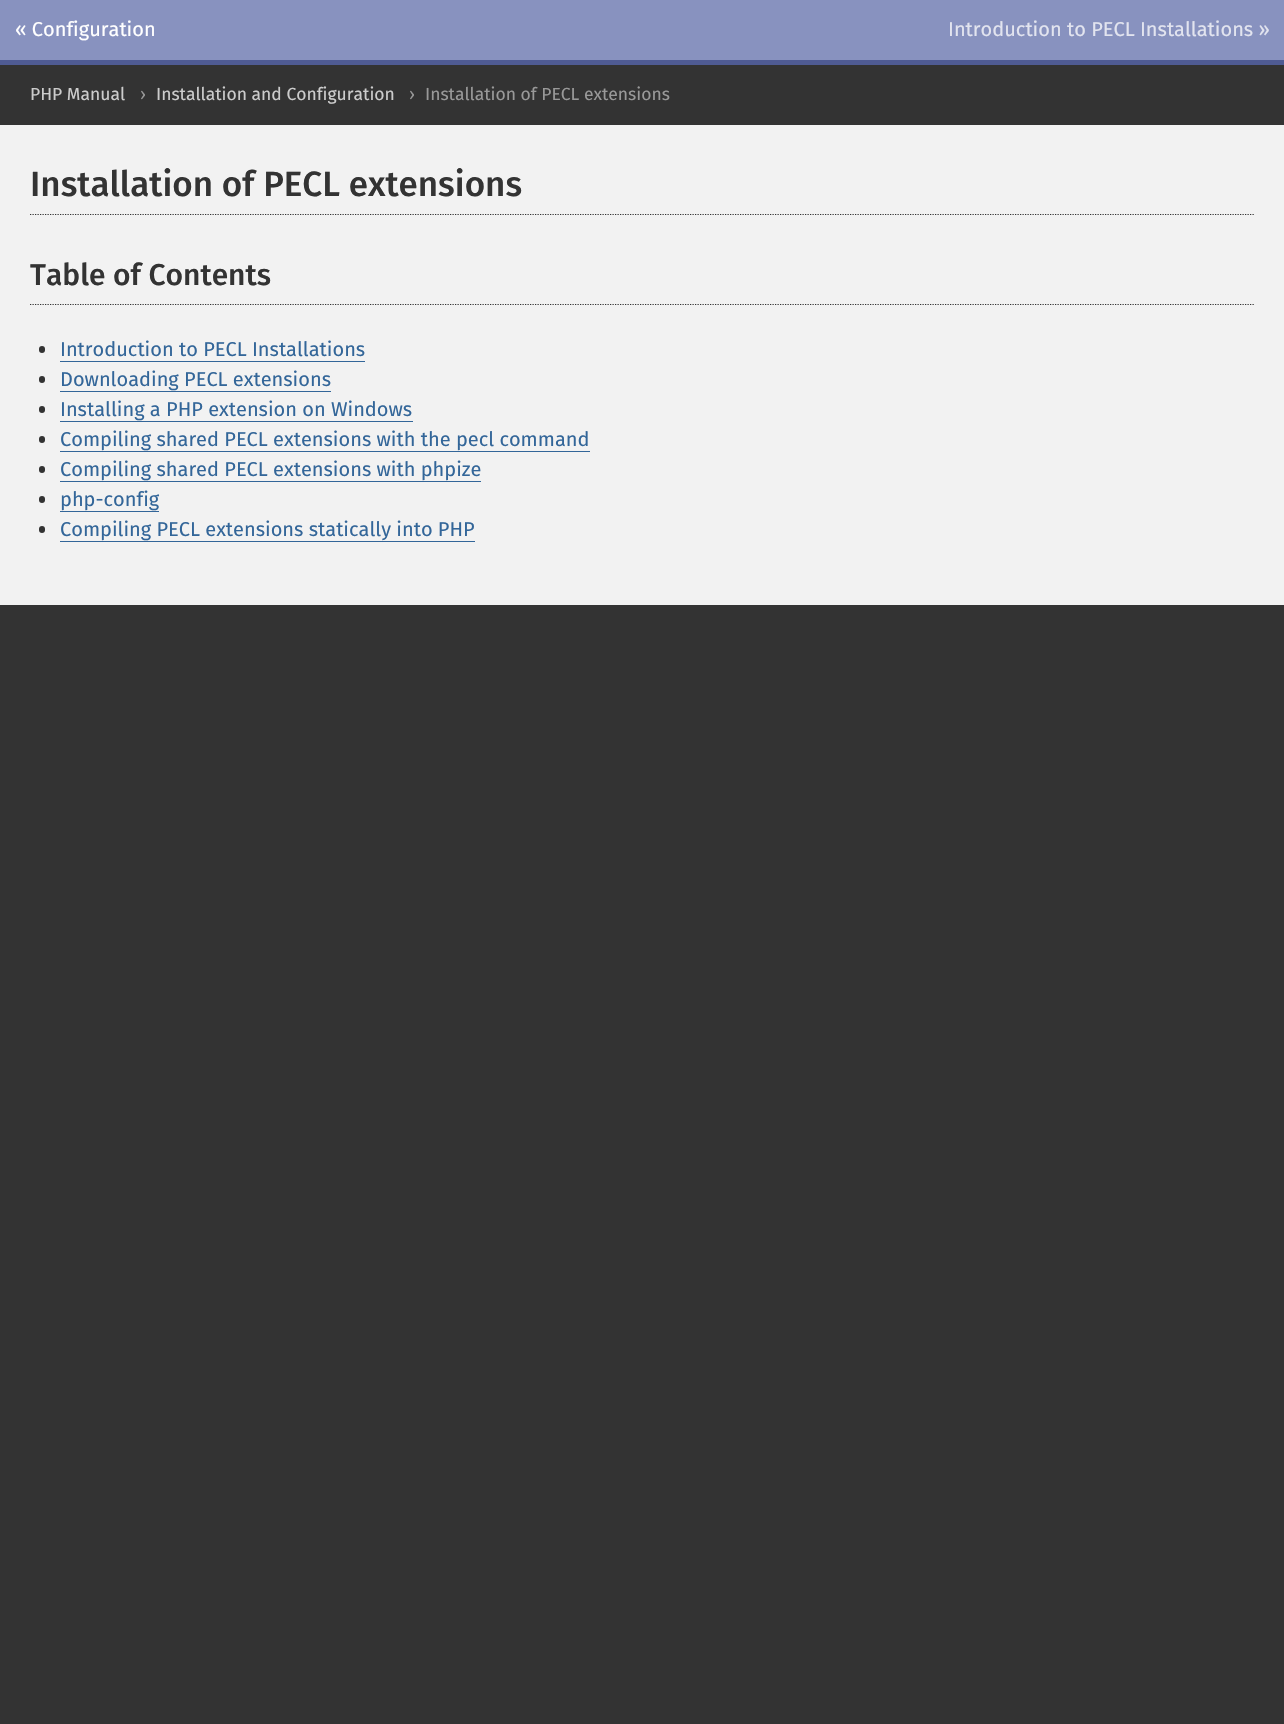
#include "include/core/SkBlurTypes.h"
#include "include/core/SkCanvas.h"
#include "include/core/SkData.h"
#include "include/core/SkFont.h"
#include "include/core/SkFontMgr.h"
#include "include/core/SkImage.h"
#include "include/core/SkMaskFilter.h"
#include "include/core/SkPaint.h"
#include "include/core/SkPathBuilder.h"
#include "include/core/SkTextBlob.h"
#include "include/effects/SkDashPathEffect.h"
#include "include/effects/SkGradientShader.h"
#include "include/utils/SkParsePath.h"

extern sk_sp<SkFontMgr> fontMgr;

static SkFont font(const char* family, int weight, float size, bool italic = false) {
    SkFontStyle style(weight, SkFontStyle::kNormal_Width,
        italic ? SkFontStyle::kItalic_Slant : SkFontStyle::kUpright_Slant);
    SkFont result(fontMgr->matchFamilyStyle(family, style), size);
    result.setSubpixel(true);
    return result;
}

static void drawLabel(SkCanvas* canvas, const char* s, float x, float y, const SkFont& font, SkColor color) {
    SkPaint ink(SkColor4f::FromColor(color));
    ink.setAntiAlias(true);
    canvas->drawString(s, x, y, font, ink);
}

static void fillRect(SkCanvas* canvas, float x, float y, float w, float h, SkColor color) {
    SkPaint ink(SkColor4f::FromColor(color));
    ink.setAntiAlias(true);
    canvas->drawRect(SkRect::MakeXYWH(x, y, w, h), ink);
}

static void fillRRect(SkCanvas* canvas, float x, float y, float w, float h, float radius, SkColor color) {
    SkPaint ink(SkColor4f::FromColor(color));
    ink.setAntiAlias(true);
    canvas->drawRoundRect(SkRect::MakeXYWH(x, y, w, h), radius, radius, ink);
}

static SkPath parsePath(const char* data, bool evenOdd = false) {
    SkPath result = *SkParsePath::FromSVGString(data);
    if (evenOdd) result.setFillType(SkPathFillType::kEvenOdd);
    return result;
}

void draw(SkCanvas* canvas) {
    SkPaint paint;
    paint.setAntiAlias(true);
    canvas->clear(0xFF333333);
    fillRect(canvas, 0, 0, 1284, 60, 0xFF8892BF);
    fillRect(canvas, 0, 60, 1284, 5, 0xFF4F5B93);
    SkFont font1 = font("Fira Sans", 400, 20);
    drawLabel(canvas, "« Configuration", 15, 36, font1, 0xFFFFFFFF);
    drawLabel(canvas, "Introduction to PECL Installations »", 948, 36, font1, 0xFFE2E4EF);
    SkFont font2 = font("Fira Sans", 400, 17.5f);
    drawLabel(canvas, "PHP Manual", 30, 100, font2, 0xFFCCCCCC);
    drawLabel(canvas, "›", 140, 100, font2, 0xFF999999);
    drawLabel(canvas, "Installation and Configuration", 156, 100, font2, 0xFFCCCCCC);
    drawLabel(canvas, "›", 409, 100, font2, 0xFF999999);
    drawLabel(canvas, "Installation of PECL extensions", 425, 100, font2, 0xFF999999);
    fillRect(canvas, 0, 125, 1284, 480, 0xFFF2F2F2);
    SkFont font3 = font("Fira Sans", 500, 35);
    drawLabel(canvas, "Installation of PECL extensions", 30, 196, font3, 0xFF333333);
    canvas->save();
    canvas->clipRect(SkRect::MakeXYWH(30, 155, 1225, 60));
    paint.setStroke(true);
    paint.setStrokeWidth(1.2f);
    paint.setColor(0xFF333333);
    paint.setPathEffect(SkDashPathEffect::Make({{1.25f, 1.25f}}, 0));
    canvas->drawPath(parsePath("M30 214.5H1255"), paint);
    paint.setPathEffect(nullptr);
    canvas->restore();
    SkFont font4 = font("Fira Sans", 500, 30);
    drawLabel(canvas, "Table of Contents", 30, 285, font4, 0xFF333333);
    canvas->save();
    canvas->clipRect(SkRect::MakeXYWH(30, 245, 1225, 60));
    paint.setPathEffect(SkDashPathEffect::Make({{1.25f, 1.25f}}, 0));
    canvas->drawPath(parsePath("M30 304.5H1255"), paint);
    paint.setPathEffect(nullptr);
    canvas->restore();
    fillRRect(canvas, 39, 346, 6, 7, 3, 0xFF333333);
    drawLabel(canvas, "Introduction to PECL Installations", 60, 356, font1, 0xFF336699);
    fillRect(canvas, 60, 361, 305, 1, 0xFF336699);
    fillRRect(canvas, 39, 376, 6, 7, 3, 0xFF333333);
    drawLabel(canvas, "Downloading PECL extensions", 60, 386, font1, 0xFF336699);
    fillRect(canvas, 60, 391, 271, 1, 0xFF336699);
    fillRRect(canvas, 39, 406, 6, 7, 3, 0xFF333333);
    drawLabel(canvas, "Installing a PHP extension on Windows", 60, 416, font1, 0xFF336699);
    fillRect(canvas, 60, 421, 353, 1, 0xFF336699);
    fillRRect(canvas, 39, 436, 6, 7, 3, 0xFF333333);
    drawLabel(canvas, "Compiling shared PECL extensions with the pecl command", 60, 446, font1, 0xFF336699);
    fillRect(canvas, 60, 451, 530, 1, 0xFF336699);
    fillRRect(canvas, 39, 466, 6, 7, 3, 0xFF333333);
    drawLabel(canvas, "Compiling shared PECL extensions with phpize", 60, 476, font1, 0xFF336699);
    fillRect(canvas, 60, 481, 421, 1, 0xFF336699);
    fillRRect(canvas, 39, 496, 6, 7, 3, 0xFF333333);
    drawLabel(canvas, "php-config", 60, 506, font1, 0xFF336699);
    fillRect(canvas, 60, 511, 99, 1, 0xFF336699);
    fillRRect(canvas, 39, 526, 6, 7, 3, 0xFF333333);
    drawLabel(canvas, "Compiling PECL extensions statically into PHP", 60, 536, font1, 0xFF336699);
    fillRect(canvas, 60, 541, 415, 1, 0xFF336699);
}
